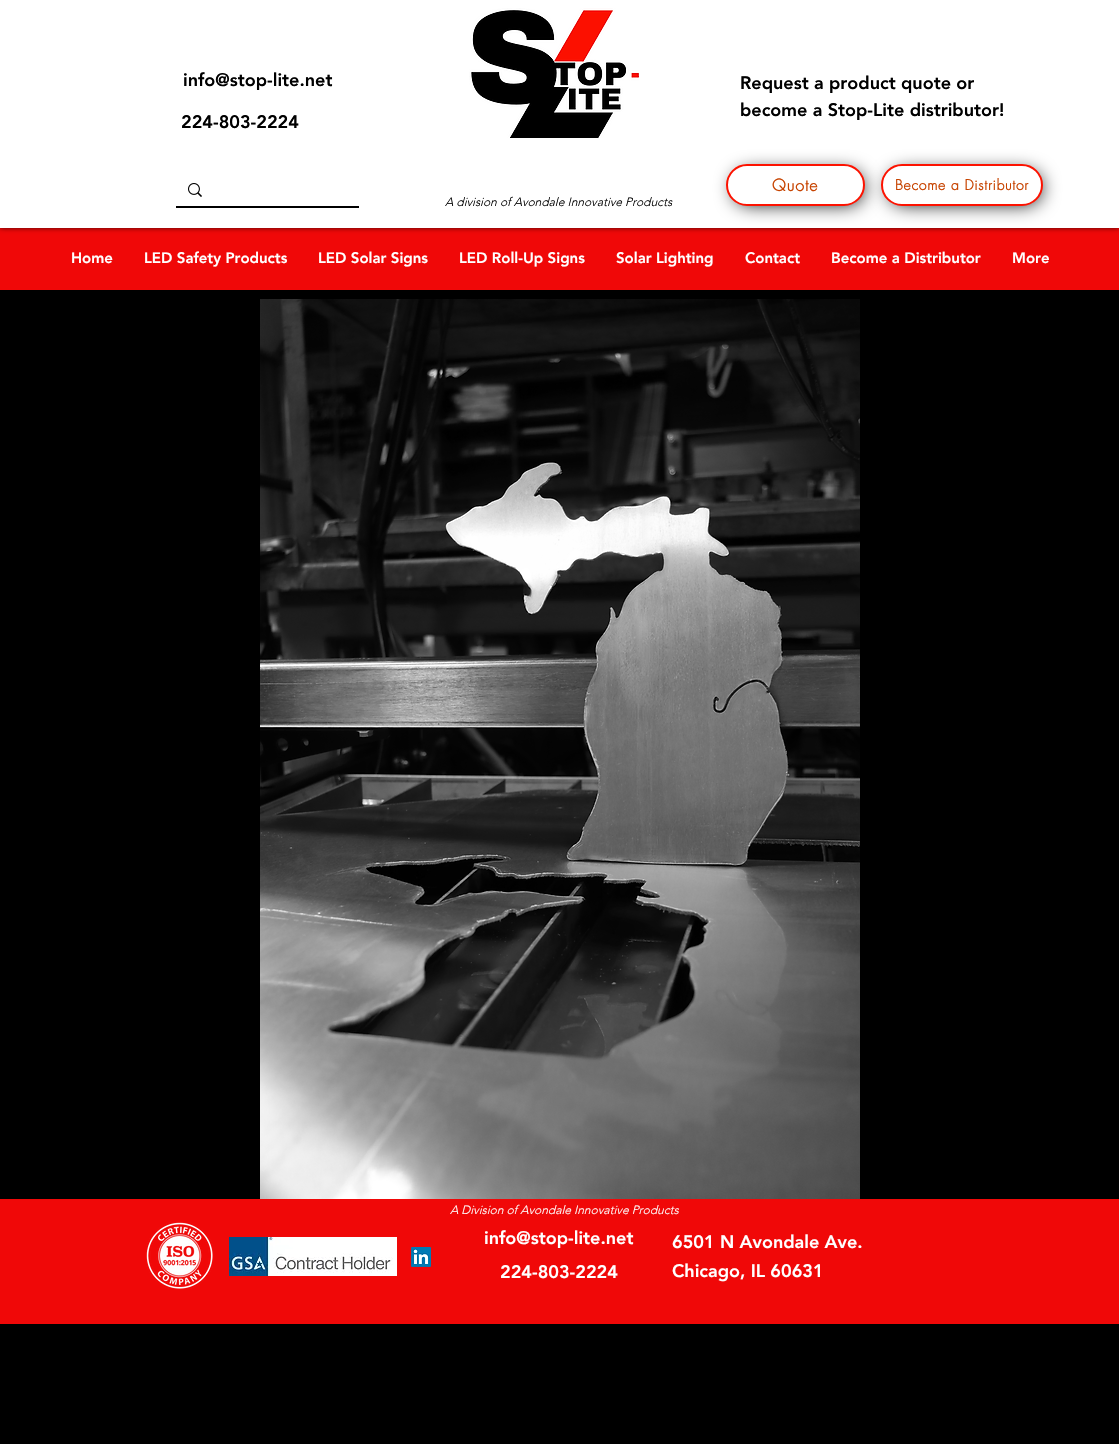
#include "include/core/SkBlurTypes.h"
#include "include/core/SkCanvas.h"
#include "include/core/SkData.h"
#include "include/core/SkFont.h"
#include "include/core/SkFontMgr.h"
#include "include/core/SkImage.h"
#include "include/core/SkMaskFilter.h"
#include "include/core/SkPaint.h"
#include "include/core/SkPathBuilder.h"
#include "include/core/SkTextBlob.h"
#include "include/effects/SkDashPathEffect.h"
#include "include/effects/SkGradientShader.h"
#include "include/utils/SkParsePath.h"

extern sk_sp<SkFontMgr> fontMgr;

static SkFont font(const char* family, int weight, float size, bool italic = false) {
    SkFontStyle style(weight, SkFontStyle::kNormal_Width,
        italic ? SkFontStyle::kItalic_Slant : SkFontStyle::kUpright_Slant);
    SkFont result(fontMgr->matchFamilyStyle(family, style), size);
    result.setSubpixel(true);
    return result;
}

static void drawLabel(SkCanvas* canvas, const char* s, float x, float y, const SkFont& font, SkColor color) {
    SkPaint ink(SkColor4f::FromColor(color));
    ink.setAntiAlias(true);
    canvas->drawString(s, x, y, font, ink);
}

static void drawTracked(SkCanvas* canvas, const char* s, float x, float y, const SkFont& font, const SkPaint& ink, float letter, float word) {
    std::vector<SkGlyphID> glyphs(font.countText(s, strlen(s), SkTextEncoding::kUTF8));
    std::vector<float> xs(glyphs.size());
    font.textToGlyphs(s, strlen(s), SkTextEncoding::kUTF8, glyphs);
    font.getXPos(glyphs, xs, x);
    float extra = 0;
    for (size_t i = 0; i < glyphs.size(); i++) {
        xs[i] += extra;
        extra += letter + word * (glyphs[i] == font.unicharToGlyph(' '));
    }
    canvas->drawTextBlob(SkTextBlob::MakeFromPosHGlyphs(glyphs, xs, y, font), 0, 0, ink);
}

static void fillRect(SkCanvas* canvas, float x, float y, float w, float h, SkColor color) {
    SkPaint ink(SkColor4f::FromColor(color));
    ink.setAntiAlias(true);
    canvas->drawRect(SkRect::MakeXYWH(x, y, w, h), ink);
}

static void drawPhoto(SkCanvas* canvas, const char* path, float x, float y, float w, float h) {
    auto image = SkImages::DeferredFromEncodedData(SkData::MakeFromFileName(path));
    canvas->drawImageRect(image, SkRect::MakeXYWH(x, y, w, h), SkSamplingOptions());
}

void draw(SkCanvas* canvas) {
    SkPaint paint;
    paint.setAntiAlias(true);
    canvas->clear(0xFF000000);
    fillRect(canvas, 0, 228, 1119, 62, 0xFFF00808);
    paint.setColor(0xB3000000);
    paint.setMaskFilter(SkMaskFilter::MakeBlur(kNormal_SkBlurStyle, 2.5f));
    canvas->drawRect(SkRect::MakeXYWH(0, 0, 1119, 228), paint);
    paint.setMaskFilter(nullptr);
    fillRect(canvas, 0, 0, 1119, 228, 0xFFFFFFFF);
    SkFont font1 = font("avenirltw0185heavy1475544", 900, 18);
    drawLabel(canvas, "info@stop-lite.net", 183, 86, font1, 0xFF000000);
    drawPhoto(canvas, "assets/img1.png", 469, 8, 170, 130);
    drawLabel(canvas, "Request a product quote or", 740, 89, font1, 0xFF000000);
    drawLabel(canvas, "become a Stop-Lite distributor!", 740, 116, font1, 0xFF000000);
    drawLabel(canvas, "224-803-2224", 181, 128, font1, 0xFF000000);
    fillRect(canvas, 176, 206, 183, 2, 0xFF000000);
    drawPhoto(canvas, "assets/img2.png", 188, 183, 14, 14);
    SkFont font2 = font("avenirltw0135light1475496", 300, 12, true);
    drawLabel(canvas, "A division of Avondale Innovative Products", 445, 206, font2, 0xFF000000);
    paint.setColor(0xFF000000);
    paint.setMaskFilter(SkMaskFilter::MakeBlur(kNormal_SkBlurStyle, 9.5f));
    canvas->drawRoundRect(SkRect::MakeXYWH(734, 172, 129, 32), 16, 16, paint);
    paint.setMaskFilter(nullptr);
    paint.setColor(0xFFFFFFFF);
    canvas->drawRoundRect(SkRect::MakeXYWH(727, 165, 137, 40), 20, 20, paint);
    paint.setStroke(true);
    paint.setStrokeWidth(2);
    paint.setColor(0xFFFD1200);
    canvas->drawRoundRect(SkRect::MakeXYWH(727, 165, 137, 40), 20, 20, paint);
    SkFont font3 = font("futura", 700, 16);
    paint.setStroke(false);
    paint.setColor(0xFFC74300);
    drawTracked(canvas, "Quote", 772, 191, font3, paint, 1, 0);
    paint.setColor(0xFF000000);
    paint.setMaskFilter(SkMaskFilter::MakeBlur(kNormal_SkBlurStyle, 9.5f));
    canvas->drawRoundRect(SkRect::MakeXYWH(889, 172, 152, 32), 16, 16, paint);
    paint.setMaskFilter(nullptr);
    paint.setColor(0xFFFFFFFF);
    canvas->drawRoundRect(SkRect::MakeXYWH(882, 165, 160, 40), 20, 20, paint);
    paint.setStroke(true);
    paint.setColor(0xFFFD1200);
    canvas->drawRoundRect(SkRect::MakeXYWH(882, 165, 160, 40), 20, 20, paint);
    SkFont font4 = font("futura", 700, 14);
    paint.setStroke(false);
    paint.setColor(0xFFC74300);
    drawTracked(canvas, "Become a Distributor", 895, 190, font4, paint, 0.7f, 0);
    SkFont font5 = font("avenirltw0185heavy1475544", 900, 15);
    drawLabel(canvas, "Home", 71, 263, font5, 0xFFFFFFFF);
    drawLabel(canvas, "LED Safety Products", 144, 263, font5, 0xFFFFFFFF);
    drawLabel(canvas, "LED Solar Signs", 318, 263, font5, 0xFFFFFFFF);
    drawLabel(canvas, "LED Roll-Up Signs", 459, 263, font5, 0xFFFFFFFF);
    drawLabel(canvas, "Solar Lighting", 616, 263, font5, 0xFFFFFFFF);
    drawLabel(canvas, "Contact", 745, 263, font5, 0xFFFFFFFF);
    drawLabel(canvas, "Become a Distributor", 831, 263, font5, 0xFFFFFFFF);
    drawLabel(canvas, "More", 1012, 263, font5, 0xFFFFFFFF);
    drawPhoto(canvas, "assets/img3.png", 260, 299, 600, 900);
    fillRect(canvas, 0, 1199, 1119, 125, 0xFFF00808);
    drawLabel(canvas, "A Division of Avondale Innovative Products", 450, 1214, font2, 0xFFFFFFFF);
    drawPhoto(canvas, "assets/img4.png", 146, 1222, 67, 67);
    drawPhoto(canvas, "assets/img5.png", 229, 1237, 168, 39);
    drawPhoto(canvas, "assets/img6.png", 411, 1247, 20, 20);
    drawLabel(canvas, "info@stop-lite.net", 484, 1244, font1, 0xFFFFFFFF);
    drawLabel(canvas, "6501 N Avondale Ave.", 672, 1248, font1, 0xFFFFFFFF);
    drawLabel(canvas, "Chicago, IL 60631", 672, 1277, font1, 0xFFFFFFFF);
    drawLabel(canvas, "224-803-2224", 500, 1278, font1, 0xFFFFFFFF);
}
